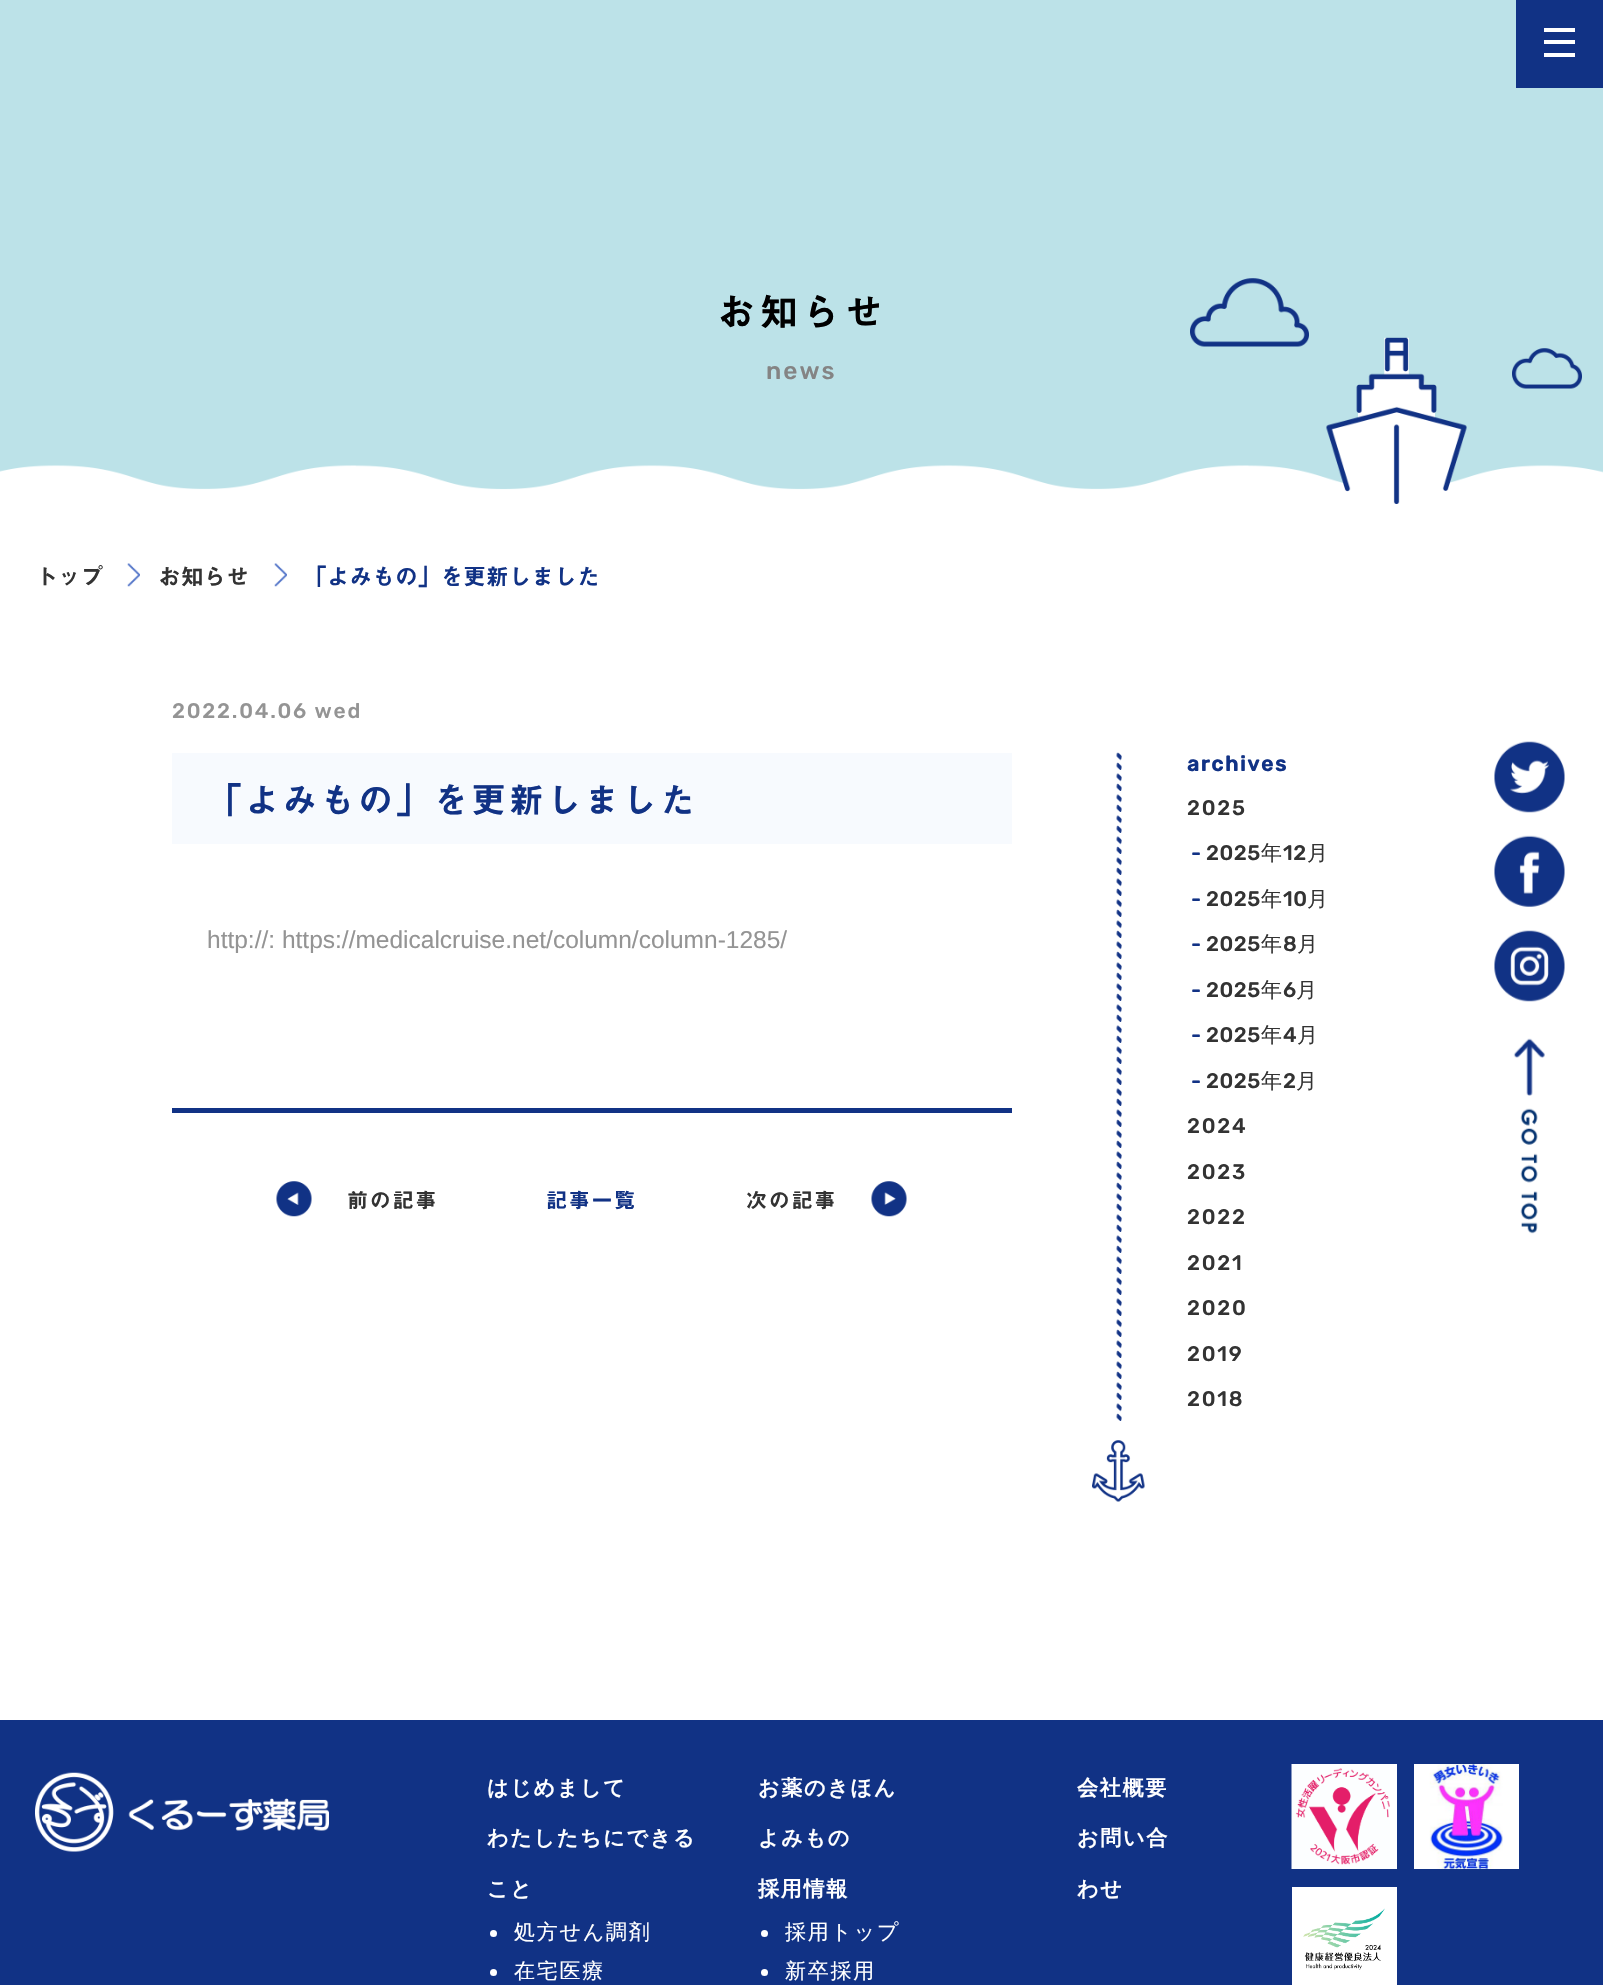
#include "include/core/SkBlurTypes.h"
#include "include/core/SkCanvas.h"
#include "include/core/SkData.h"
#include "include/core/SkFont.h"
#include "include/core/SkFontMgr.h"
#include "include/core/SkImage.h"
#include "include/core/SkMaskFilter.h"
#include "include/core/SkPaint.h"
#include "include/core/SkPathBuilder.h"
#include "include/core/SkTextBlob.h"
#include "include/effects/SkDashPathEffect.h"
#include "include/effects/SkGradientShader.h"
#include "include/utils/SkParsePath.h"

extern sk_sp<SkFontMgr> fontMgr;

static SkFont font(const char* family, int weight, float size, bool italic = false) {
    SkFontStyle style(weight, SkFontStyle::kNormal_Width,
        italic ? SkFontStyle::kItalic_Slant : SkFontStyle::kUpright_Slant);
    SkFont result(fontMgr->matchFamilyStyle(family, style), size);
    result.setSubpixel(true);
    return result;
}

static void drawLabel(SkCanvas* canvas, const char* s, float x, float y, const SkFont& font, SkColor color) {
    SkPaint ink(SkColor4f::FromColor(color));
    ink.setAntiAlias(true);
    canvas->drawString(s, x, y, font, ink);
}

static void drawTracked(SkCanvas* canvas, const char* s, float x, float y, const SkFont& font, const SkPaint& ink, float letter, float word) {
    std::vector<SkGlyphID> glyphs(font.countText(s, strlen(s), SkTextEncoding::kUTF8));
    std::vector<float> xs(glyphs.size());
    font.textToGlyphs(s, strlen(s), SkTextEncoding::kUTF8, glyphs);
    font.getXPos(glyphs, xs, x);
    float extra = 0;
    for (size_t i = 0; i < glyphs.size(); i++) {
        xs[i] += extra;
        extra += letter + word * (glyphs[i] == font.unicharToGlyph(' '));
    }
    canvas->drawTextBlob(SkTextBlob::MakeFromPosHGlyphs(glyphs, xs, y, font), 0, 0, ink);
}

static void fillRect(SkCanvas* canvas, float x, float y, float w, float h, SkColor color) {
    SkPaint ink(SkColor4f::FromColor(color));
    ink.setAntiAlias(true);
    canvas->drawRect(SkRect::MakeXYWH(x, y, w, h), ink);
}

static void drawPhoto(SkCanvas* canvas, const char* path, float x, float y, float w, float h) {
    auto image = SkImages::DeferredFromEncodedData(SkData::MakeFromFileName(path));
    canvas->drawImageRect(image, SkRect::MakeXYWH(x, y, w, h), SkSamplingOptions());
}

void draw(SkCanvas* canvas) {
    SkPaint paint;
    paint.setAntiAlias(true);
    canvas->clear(0xFFFFFFFF);
    fillRect(canvas, 0, 0, 1603, 490, 0xFFBCE2E8);
    fillRect(canvas, 1516, 0, 87, 88, 0xFF113285);
    fillRect(canvas, 1544, 28, 31, 4, 0xFFFFFFFF);
    fillRect(canvas, 1544, 40, 31, 4, 0xFFFFFFFF);
    fillRect(canvas, 1544, 53, 31, 4, 0xFFFFFFFF);
    drawPhoto(canvas, "assets/img1.png", 0, 465, 1603, 60);
    SkFont font1 = font("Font", 600, 38.5f);
    paint.setColor(0xFF000000);
    drawTracked(canvas, "お知らせ", 717, 326, font1, paint, 4, 0);
    drawPhoto(canvas, "assets/img2.png", 1190, 278, 392, 226);
    SkFont font2 = font("Rubik", 300, 24.5f);
    paint.setColor(0xFF848484);
    drawTracked(canvas, "news", 766, 379, font2, paint, 2, 0);
    SkFont font3 = font("Font", 600, 22.75f);
    drawLabel(canvas, "トップ", 35, 585, font3, 0xFF333333);
    drawPhoto(canvas, "assets/img3.png", 127, 563, 13, 24);
    drawLabel(canvas, "お知らせ", 158, 585, font3, 0xFF333333);
    drawPhoto(canvas, "assets/img3.png", 274, 563, 13, 24);
    drawLabel(canvas, "「よみもの」を更新しました", 304, 585, font3, 0xFF113285);
    SkFont font4 = font("Rubik", 300, 21);
    paint.setColor(0xFF949494);
    drawTracked(canvas, "2022.04.06 wed", 172, 718, font4, paint, 1.75f, 0);
    fillRect(canvas, 172, 753, 840, 91, 0xFFF7FAFE);
    SkFont font5 = font("Font", 600, 35);
    paint.setColor(0xFF113285);
    drawTracked(canvas, "「よみもの」を更新しました", 207, 813, font5, paint, 2.75f, 0);
    SkFont font6 = font("Liberation Sans", 400, 24.5f);
    drawLabel(canvas, "http://: https://medicalcruise.net/column/column-1285/", 207, 948, font6, 0xFF949494);
    fillRect(canvas, 172, 1108, 840, 5, 0xFF113285);
    drawPhoto(canvas, "assets/img4.png", 276, 1181, 36, 36);
    SkFont font7 = font("Font", 600, 21);
    paint.setColor(0xFF333333);
    drawTracked(canvas, "前の記事", 347, 1208, font7, paint, 1.75f, 0);
    paint.setColor(0xFF113285);
    drawTracked(canvas, "記事一覧", 546, 1208, font7, paint, 1.75f, 0);
    paint.setColor(0xFF333333);
    drawTracked(canvas, "次の記事", 746, 1208, font7, paint, 1.75f, 0);
    drawPhoto(canvas, "assets/img5.png", 871, 1181, 36, 36);
    drawPhoto(canvas, "assets/img6.png", 1116, 752, 6, 669);
    SkFont font8 = font("Rubik", 700, 21);
    paint.setColor(0xFF113285);
    drawTracked(canvas, "archives", 1187, 771, font8, paint, 1.75f, 0);
    paint.setColor(0xFF333333);
    drawTracked(canvas, "2025", 1187, 815, font4, paint, 1.75f, 0);
    paint.setColor(0xFF113285);
    drawTracked(canvas, "-", 1191, 860, font4, paint, 0.5f, 0);
    paint.setColor(0xFF333333);
    drawTracked(canvas, "2025", 1206, 860, font4, paint, 0.5f, 0);
    SkFont font9 = font("WenQuanYi Zen Hei", 500, 21);
    drawTracked(canvas, "年", 1261, 860, font9, paint, 0.5f, 0);
    drawTracked(canvas, "12", 1283, 860, font4, paint, 0.5f, 0);
    drawTracked(canvas, "月", 1307, 860, font9, paint, 0.5f, 0);
    paint.setColor(0xFF113285);
    drawTracked(canvas, "-", 1191, 906, font4, paint, 0.5f, 0);
    paint.setColor(0xFF333333);
    drawTracked(canvas, "2025", 1206, 906, font4, paint, 0.5f, 0);
    drawTracked(canvas, "年", 1261, 906, font9, paint, 0.5f, 0);
    drawTracked(canvas, "10", 1283, 906, font4, paint, 0.5f, 0);
    drawTracked(canvas, "月", 1307, 906, font9, paint, 0.5f, 0);
    paint.setColor(0xFF113285);
    drawTracked(canvas, "-", 1191, 951, font4, paint, 0.5f, 0);
    paint.setColor(0xFF333333);
    drawTracked(canvas, "2025", 1206, 951, font4, paint, 0.5f, 0);
    drawTracked(canvas, "年", 1261, 951, font9, paint, 0.5f, 0);
    drawTracked(canvas, "8", 1283, 951, font4, paint, 0.5f, 0);
    drawTracked(canvas, "月", 1297, 951, font9, paint, 0.5f, 0);
    paint.setColor(0xFF113285);
    drawTracked(canvas, "-", 1191, 997, font4, paint, 0.5f, 0);
    paint.setColor(0xFF333333);
    drawTracked(canvas, "2025", 1206, 997, font4, paint, 0.5f, 0);
    drawTracked(canvas, "年", 1261, 997, font9, paint, 0.5f, 0);
    drawTracked(canvas, "6", 1283, 997, font4, paint, 0.5f, 0);
    drawTracked(canvas, "月", 1296, 997, font9, paint, 0.5f, 0);
    paint.setColor(0xFF113285);
    drawTracked(canvas, "-", 1191, 1042, font4, paint, 0.5f, 0);
    paint.setColor(0xFF333333);
    drawTracked(canvas, "2025", 1206, 1042, font4, paint, 0.5f, 0);
    drawTracked(canvas, "年", 1261, 1042, font9, paint, 0.5f, 0);
    drawTracked(canvas, "4", 1283, 1042, font4, paint, 0.5f, 0);
    drawTracked(canvas, "月", 1297, 1042, font9, paint, 0.5f, 0);
    paint.setColor(0xFF113285);
    drawTracked(canvas, "-", 1191, 1088, font4, paint, 0.5f, 0);
    paint.setColor(0xFF333333);
    drawTracked(canvas, "2025", 1206, 1088, font4, paint, 0.5f, 0);
    drawTracked(canvas, "年", 1261, 1088, font9, paint, 0.5f, 0);
    drawTracked(canvas, "2", 1283, 1088, font4, paint, 0.5f, 0);
    drawTracked(canvas, "月", 1296, 1088, font9, paint, 0.5f, 0);
    drawTracked(canvas, "2024", 1187, 1133, font4, paint, 1.75f, 0);
    drawTracked(canvas, "2023", 1187, 1179, font4, paint, 1.75f, 0);
    drawTracked(canvas, "2022", 1187, 1224, font4, paint, 1.75f, 0);
    drawTracked(canvas, "2021", 1187, 1270, font4, paint, 1.75f, 0);
    drawTracked(canvas, "2020", 1187, 1315, font4, paint, 1.75f, 0);
    drawTracked(canvas, "2019", 1187, 1361, font4, paint, 1.75f, 0);
    drawTracked(canvas, "2018", 1187, 1406, font4, paint, 1.75f, 0);
    drawPhoto(canvas, "assets/img7.png", 1092, 1440, 53, 62);
    drawPhoto(canvas, "assets/img8.png", 1494, 741, 71, 72);
    drawPhoto(canvas, "assets/img9.png", 1494, 835, 71, 72);
    drawPhoto(canvas, "assets/img10.png", 1494, 930, 71, 72);
    drawPhoto(canvas, "assets/img11.png", 1520, 1108, 18, 126);
    drawPhoto(canvas, "assets/img12.png", 1513, 1038, 32, 58);
    fillRect(canvas, 0, 1720, 1603, 265, 0xFF113285);
    drawPhoto(canvas, "assets/img13.png", 35, 1772, 294, 80);
    SkFont font10 = font("WenQuanYi Zen Hei", 700, 21);
    paint.setColor(0xFFFFFFFF);
    drawTracked(canvas, "はじめまして", 487, 1795, font10, paint, 1.75f, 0);
    drawTracked(canvas, "わたしたちにできる", 487, 1845, font10, paint, 1.75f, 0);
    drawTracked(canvas, "こと", 487, 1896, font10, paint, 1.75f, 0);
    canvas->drawCircle(493.5f, 1933.5f, 3.5f, paint);
    drawTracked(canvas, "処方せん調剤", 514, 1939, font9, paint, 1.75f, 0);
    canvas->drawCircle(493.5f, 1972.5f, 3.5f, paint);
    drawTracked(canvas, "在宅医療", 514, 1978, font9, paint, 1.75f, 0);
    drawTracked(canvas, "お薬のきほん", 758, 1795, font10, paint, 1.75f, 0);
    drawTracked(canvas, "よみもの", 758, 1845, font10, paint, 1.75f, 0);
    drawTracked(canvas, "採用情報", 758, 1896, font10, paint, 1.75f, 0);
    canvas->drawCircle(764.5f, 1933.5f, 3.5f, paint);
    drawTracked(canvas, "採用トップ", 785, 1939, font9, paint, 1.75f, 0);
    canvas->drawCircle(764.5f, 1972.5f, 3.5f, paint);
    drawTracked(canvas, "新卒採用", 785, 1978, font9, paint, 1.75f, 0);
    drawTracked(canvas, "会社概要", 1077, 1795, font10, paint, 1.75f, 0);
    drawTracked(canvas, "お問い合", 1077, 1845, font10, paint, 1.75f, 0);
    drawTracked(canvas, "わせ", 1077, 1896, font10, paint, 1.75f, 0);
    fillRect(canvas, 1390, 1764, 7, 105, 0xFFFFFFFF);
    drawPhoto(canvas, "assets/img14.png", 1291, 1764, 99, 105);
    fillRect(canvas, 1414, 1764, 105, 105, 0xFFFFFFFF);
    drawPhoto(canvas, "assets/img15.png", 1429, 1764, 74, 105);
    fillRect(canvas, 1292, 1887, 105, 98, 0xFFFFFFFF);
    drawPhoto(canvas, "assets/img16.png", 1303, 1908, 82, 62);
}
